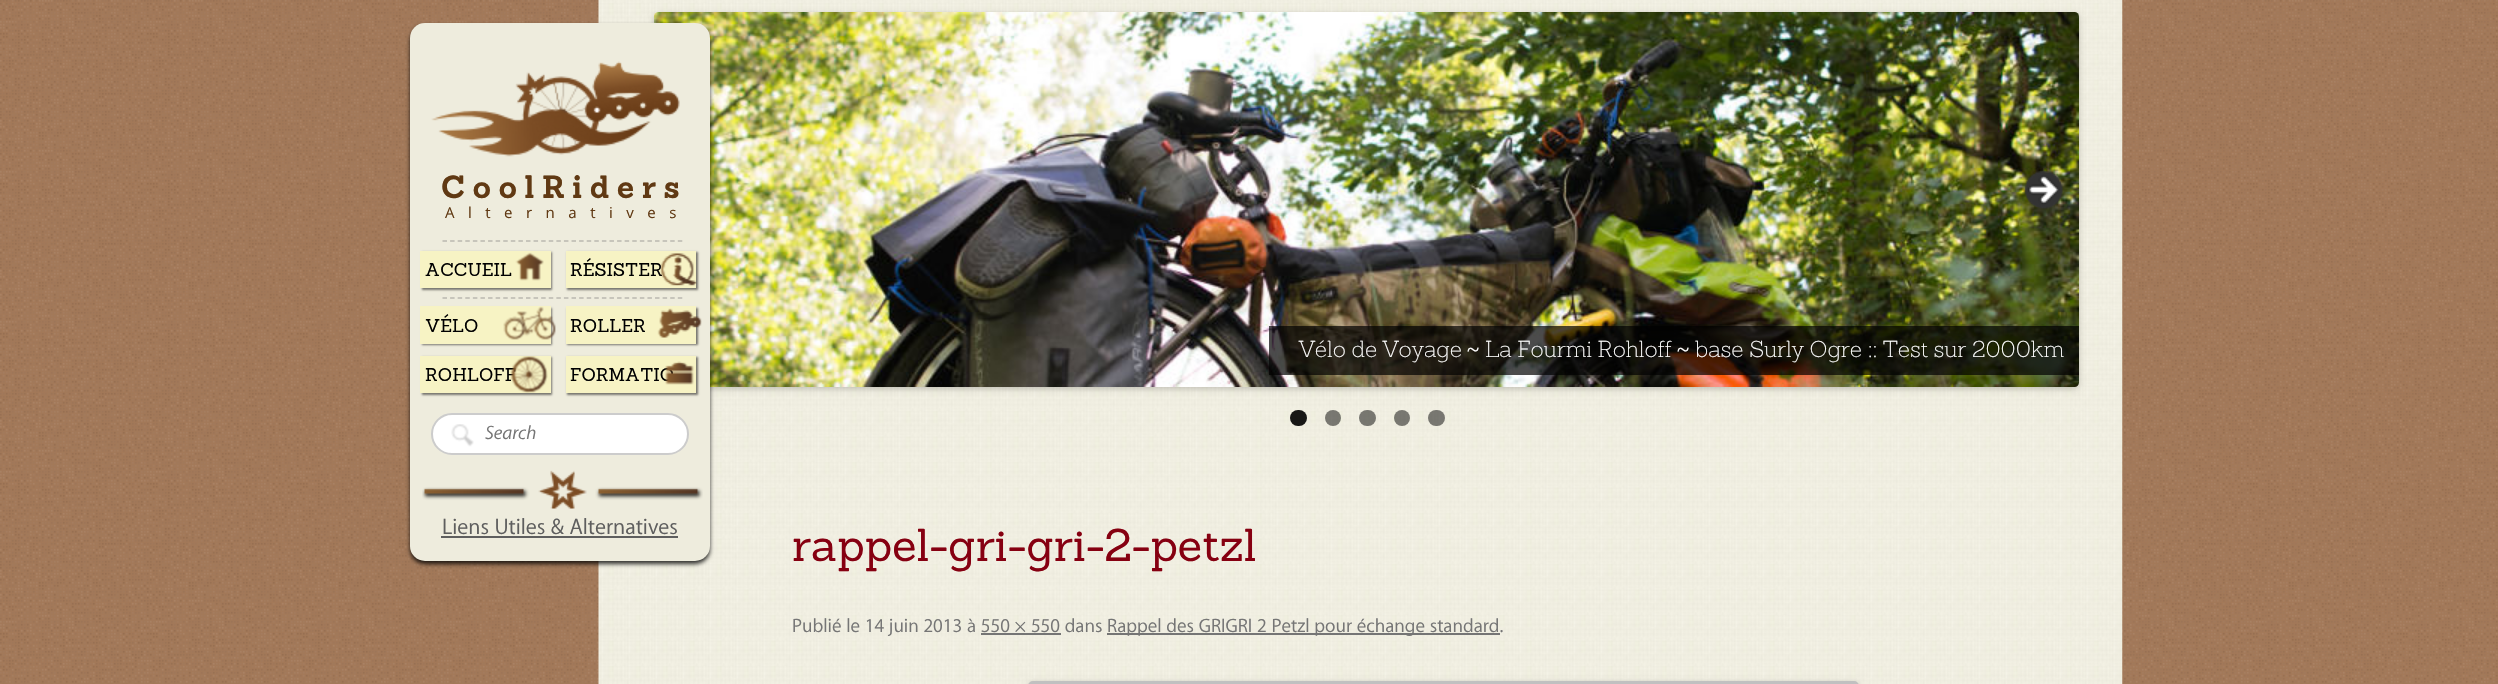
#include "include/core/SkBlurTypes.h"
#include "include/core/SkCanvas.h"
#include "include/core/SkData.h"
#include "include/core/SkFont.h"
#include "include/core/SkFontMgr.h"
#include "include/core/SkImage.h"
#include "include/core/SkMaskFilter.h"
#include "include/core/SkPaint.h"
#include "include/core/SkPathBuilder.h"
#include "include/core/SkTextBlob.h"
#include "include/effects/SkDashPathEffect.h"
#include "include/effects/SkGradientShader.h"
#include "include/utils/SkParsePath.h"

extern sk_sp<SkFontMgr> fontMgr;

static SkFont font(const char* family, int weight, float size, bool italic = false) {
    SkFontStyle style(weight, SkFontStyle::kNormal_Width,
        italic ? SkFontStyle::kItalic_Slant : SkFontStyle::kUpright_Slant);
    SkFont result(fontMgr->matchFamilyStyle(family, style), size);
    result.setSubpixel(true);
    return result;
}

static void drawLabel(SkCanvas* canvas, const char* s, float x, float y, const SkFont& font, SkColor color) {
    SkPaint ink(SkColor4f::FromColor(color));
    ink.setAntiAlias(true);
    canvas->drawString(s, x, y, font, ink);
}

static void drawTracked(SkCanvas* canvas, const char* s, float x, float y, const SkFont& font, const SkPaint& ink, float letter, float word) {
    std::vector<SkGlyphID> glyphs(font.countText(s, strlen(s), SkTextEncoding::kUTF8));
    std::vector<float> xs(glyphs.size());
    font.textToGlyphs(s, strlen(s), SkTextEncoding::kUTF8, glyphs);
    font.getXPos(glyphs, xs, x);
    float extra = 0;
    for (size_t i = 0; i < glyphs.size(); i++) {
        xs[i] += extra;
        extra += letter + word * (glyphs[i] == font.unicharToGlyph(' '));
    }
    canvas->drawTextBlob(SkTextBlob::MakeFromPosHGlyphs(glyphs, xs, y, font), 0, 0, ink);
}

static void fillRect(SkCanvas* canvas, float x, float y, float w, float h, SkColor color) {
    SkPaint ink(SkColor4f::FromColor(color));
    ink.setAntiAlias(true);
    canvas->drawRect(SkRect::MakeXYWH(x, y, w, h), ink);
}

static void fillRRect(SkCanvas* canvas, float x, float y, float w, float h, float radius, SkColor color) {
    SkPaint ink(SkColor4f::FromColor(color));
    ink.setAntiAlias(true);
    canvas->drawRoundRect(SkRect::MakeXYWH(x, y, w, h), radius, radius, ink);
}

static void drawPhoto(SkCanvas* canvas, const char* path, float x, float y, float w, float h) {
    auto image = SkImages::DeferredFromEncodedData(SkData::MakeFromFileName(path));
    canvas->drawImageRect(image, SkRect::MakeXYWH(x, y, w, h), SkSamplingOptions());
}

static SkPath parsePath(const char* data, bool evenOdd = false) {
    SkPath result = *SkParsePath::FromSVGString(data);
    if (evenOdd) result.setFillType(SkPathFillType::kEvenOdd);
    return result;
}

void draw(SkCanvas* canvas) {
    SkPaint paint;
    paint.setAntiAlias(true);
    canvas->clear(0xFFFFFFFF);
    drawPhoto(canvas, "assets/img1.png", 0, 0, 2498, 684);
    drawPhoto(canvas, "assets/img11.png", 598, 0, 1525, 684);
    paint.setColor(0x33000000);
    paint.setMaskFilter(SkMaskFilter::MakeBlur(kNormal_SkBlurStyle, 3));
    canvas->drawRoundRect(SkRect::MakeXYWH(654, 14, 1425, 375), 5, 5, paint);
    paint.setMaskFilter(nullptr);
    drawPhoto(canvas, "assets/img13.png", 654, 12, 1425, 375);
    paint.setColor(0xCC000000);
    paint.setMaskFilter(SkMaskFilter::MakeBlur(kNormal_SkBlurStyle, 2));
    canvas->drawRoundRect(SkRect::MakeXYWH(410, 26, 300, 538), 15, 15, paint);
    paint.setMaskFilter(nullptr);
    fillRRect(canvas, 410, 23, 300, 538, 15, 0xFFEEECDD);
    drawPhoto(canvas, "assets/img2.png", 431, 61, 249, 96);
    SkFont font1 = font("Sanchez", 700, 31.5f);
    paint.setColor(0xFF603913);
    drawTracked(canvas, "CoolRiders", 441, 198, font1, paint, 7.5f, 0);
    SkFont font2 = font("Open Sans", 400, 15);
    drawTracked(canvas, "Alternatives", 445, 218, font2, paint, 13.5f, 0);
    paint.setColor(0x80000000);
    paint.setMaskFilter(SkMaskFilter::MakeBlur(kNormal_SkBlurStyle, 1));
    canvas->drawRect(SkRect::MakeXYWH(422, 252, 130, 38), paint);
    paint.setMaskFilter(nullptr);
    fillRect(canvas, 420, 251, 131, 37, 0xFFF7F3C4);
    paint.setStroke(true);
    paint.setStrokeWidth(1.5f);
    paint.setColor(0xFFBBB9B0);
    paint.setPathEffect(SkDashPathEffect::Make({{4.5f, 3.09f}}, 0));
    canvas->drawPath(parsePath("M442.5 241H682.5"), paint);
    paint.setPathEffect(nullptr);
    SkFont font3 = font("Sanchez", 400, 18);
    drawLabel(canvas, "ACCUEIL", 425, 276, font3, 0xFF000000);
    drawPhoto(canvas, "assets/img3.png", 515, 252, 29, 29);
    paint.setPathEffect(SkDashPathEffect::Make({{4.5f, 3.09f}}, 0));
    canvas->drawPath(parsePath("M442.5 298H682.5"), paint);
    paint.setPathEffect(nullptr);
    paint.setStroke(false);
    paint.setColor(0x80000000);
    paint.setMaskFilter(SkMaskFilter::MakeBlur(kNormal_SkBlurStyle, 1));
    canvas->drawRect(SkRect::MakeXYWH(567, 252, 131, 38), paint);
    paint.setMaskFilter(nullptr);
    fillRect(canvas, 566, 251, 130, 37, 0xFFF7F3C4);
    drawLabel(canvas, "RÉSISTER", 570, 276, font3, 0xFF000000);
    drawPhoto(canvas, "assets/img4.png", 660, 253, 37, 33);
    paint.setMaskFilter(SkMaskFilter::MakeBlur(kNormal_SkBlurStyle, 1));
    canvas->drawRect(SkRect::MakeXYWH(422, 308, 130, 37), paint);
    paint.setMaskFilter(nullptr);
    fillRect(canvas, 420, 306, 131, 38, 0xFFF7F3C4);
    drawLabel(canvas, "VÉLO", 425, 332, font3, 0xFF000000);
    drawPhoto(canvas, "assets/img5.png", 503, 306, 53, 34);
    paint.setMaskFilter(SkMaskFilter::MakeBlur(kNormal_SkBlurStyle, 1));
    canvas->drawRect(SkRect::MakeXYWH(567, 308, 131, 37), paint);
    paint.setMaskFilter(nullptr);
    fillRect(canvas, 566, 306, 130, 38, 0xFFF7F3C4);
    drawLabel(canvas, "ROLLER", 570, 332, font3, 0xFF000000);
    drawPhoto(canvas, "assets/img6.png", 657, 308, 45, 30);
    paint.setMaskFilter(SkMaskFilter::MakeBlur(kNormal_SkBlurStyle, 1));
    canvas->drawRect(SkRect::MakeXYWH(422, 357, 130, 38), paint);
    paint.setMaskFilter(nullptr);
    fillRect(canvas, 420, 356, 131, 37, 0xFFF7F3C4);
    drawLabel(canvas, "ROHLOFF", 425, 381, font3, 0xFF000000);
    drawPhoto(canvas, "assets/img7.png", 510, 356, 38, 37);
    paint.setMaskFilter(SkMaskFilter::MakeBlur(kNormal_SkBlurStyle, 1));
    canvas->drawRect(SkRect::MakeXYWH(567, 357, 131, 38), paint);
    paint.setMaskFilter(nullptr);
    fillRect(canvas, 566, 356, 130, 37, 0xFFF7F3C4);
    drawLabel(canvas, "FORMATIO", 570, 381, font3, 0xFF000000);
    drawPhoto(canvas, "assets/img8.png", 665, 361, 29, 24);
    paint.setColor(0xFFFFFFFF);
    canvas->drawRoundRect(SkRect::MakeXYWH(432, 414, 256, 40), 20, 20, paint);
    paint.setStroke(true);
    paint.setStrokeWidth(2);
    paint.setColor(0xFFCCCCCC);
    canvas->drawRoundRect(SkRect::MakeXYWH(432, 414, 256, 40), 20, 20, paint);
    drawPhoto(canvas, "assets/img9.png", 451, 424, 23, 23);
    SkFont font4 = font("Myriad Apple", 400, 19.5f, true);
    drawLabel(canvas, "Search", 485, 439, font4, 0xFF757575);
    drawPhoto(canvas, "assets/img10.png", 422, 470, 281, 39);
    SkFont font5 = font("Myriad Apple", 400, 22.5f);
    drawLabel(canvas, "Liens Utiles & Alternatives", 442, 534, font5, 0xFF5E5E5E);
    fillRect(canvas, 441, 536, 237, 2, 0xFF5E5E5E);
    drawPhoto(canvas, "assets/img12.png", 2024, 170, 39, 39);
    fillRect(canvas, 1269, 326, 810, 49, 0xB3000000);
    SkFont font6 = font("Sanchez", 200, 22.5f);
    drawLabel(canvas, "Vélo de Voyage", 1299, 357, font6, 0xFFFFFFFF);
    SkFont font7 = font("Liberation Serif", 400, 22.5f);
    drawLabel(canvas, "~", 1467, 357, font7, 0xFFFFFFFF);
    drawLabel(canvas, "La Fourmi Rohloff", 1485, 357, font6, 0xFFFFFFFF);
    drawLabel(canvas, "~", 1677, 357, font7, 0xFFFFFFFF);
    drawLabel(canvas, "base Surly Ogre :: Test sur 2000km", 1695, 357, font6, 0xFFFFFFFF);
    fillRRect(canvas, 1290, 410, 17, 16, 8, 0xE6000000);
    paint.setStroke(false);
    paint.setColor(0x80000000);
    canvas->drawCircle(1333, 418, 8, paint);
    fillRRect(canvas, 1359, 410, 17, 16, 8, 0x80000000);
    canvas->drawCircle(1402, 418, 8, paint);
    fillRRect(canvas, 1428, 410, 17, 16, 8, 0x80000000);
    SkFont font8 = font("Sanchez", 400, 45);
    drawLabel(canvas, "rappel-gri-gri-2-petzl", 792, 561, font8, 0xFF860011);
    SkFont font9 = font("Myriad Apple", 400, 19.5f);
    drawLabel(canvas, "Publié le 14 juin 2013 à 550 × 550 dans", 792, 632, font9, 0xFF757575);
    fillRect(canvas, 1107, 633, 393, 2, 0xFF757575);
    drawLabel(canvas, "Rappel des GRIGRI 2 Petzl pour échange standard.", 1107, 632, font9, 0xFF757575);
    fillRect(canvas, 981, 633, 80, 2, 0xFF757575);
    paint.setColor(0x33000000);
    paint.setMaskFilter(SkMaskFilter::MakeBlur(kNormal_SkBlurStyle, 3));
    canvas->drawRoundRect(SkRect::MakeXYWH(1028, 683, 831, 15), 5, 5, paint);
    paint.setMaskFilter(nullptr);
    paint.setStroke(true);
    paint.setStrokeWidth(3);
    paint.setColor(0xFFC0C0C0);
    canvas->drawRoundRect(SkRect::MakeXYWH(1029.5f, 682.5f, 828, 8), 3.5f, 3.5f, paint);
}
